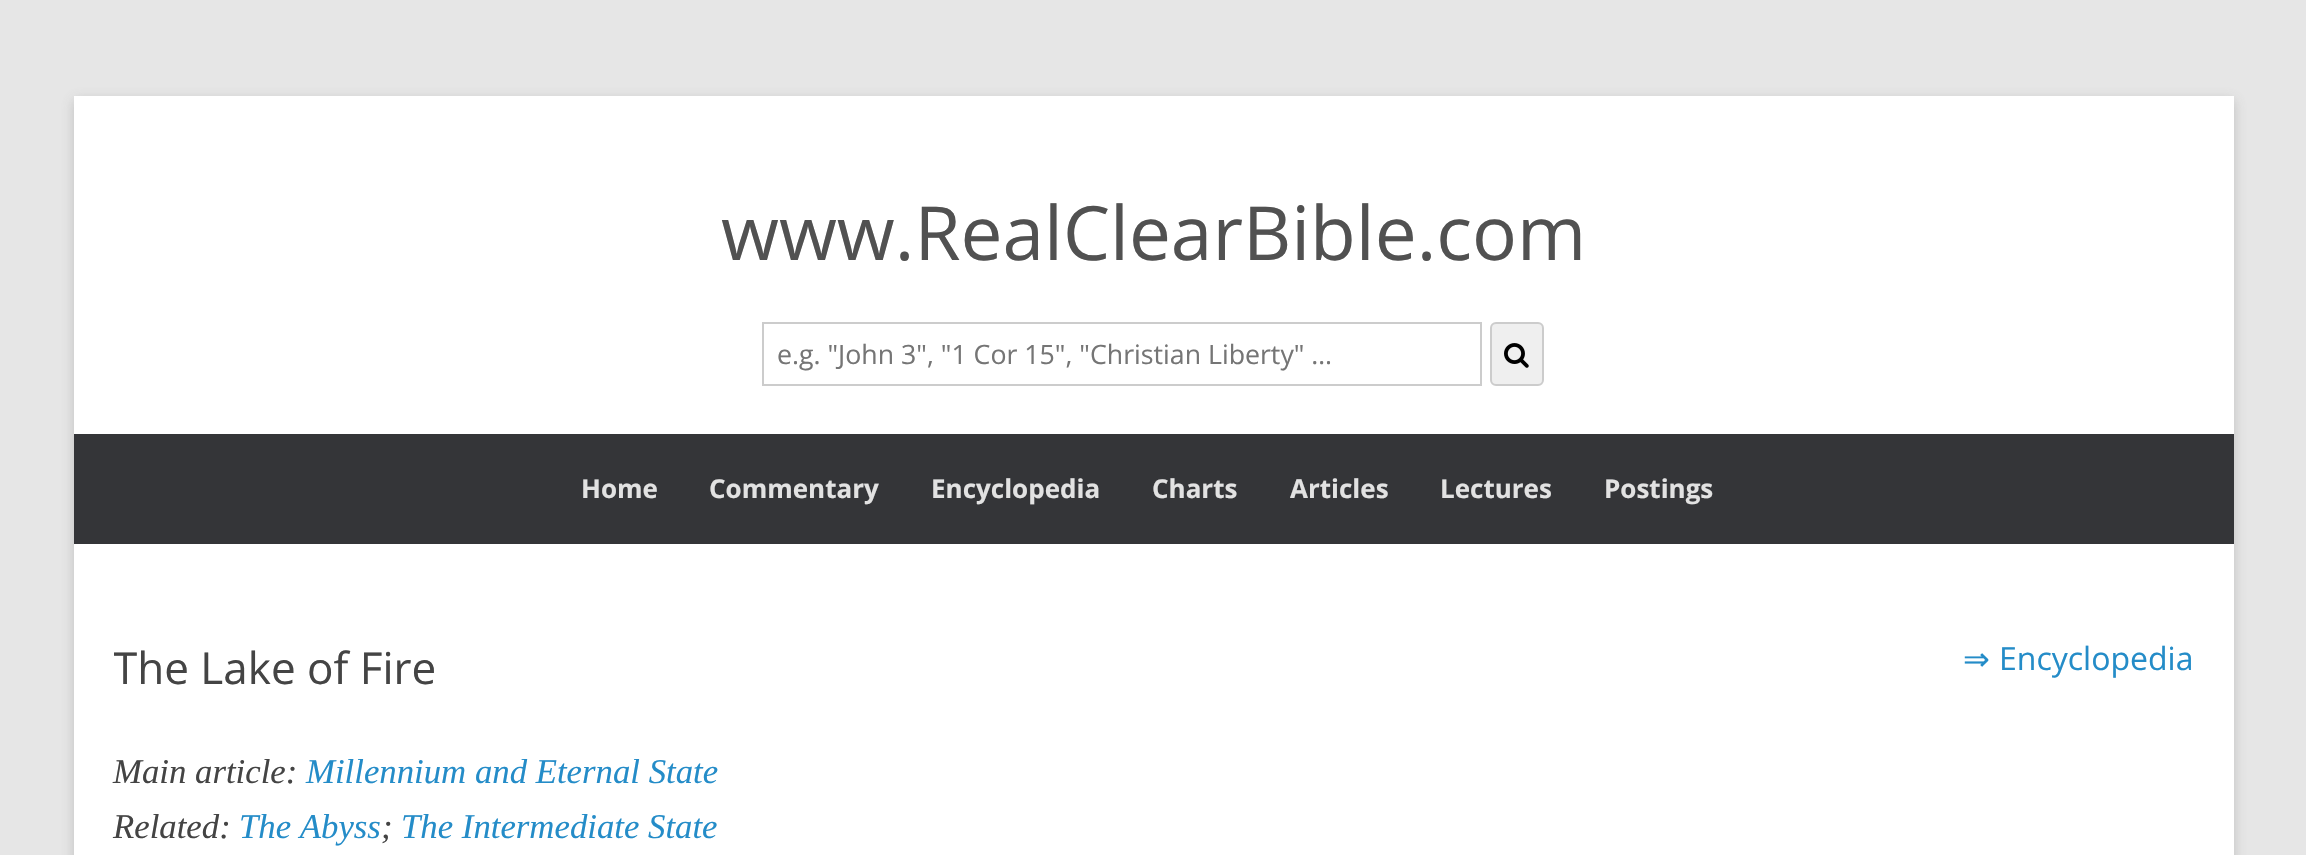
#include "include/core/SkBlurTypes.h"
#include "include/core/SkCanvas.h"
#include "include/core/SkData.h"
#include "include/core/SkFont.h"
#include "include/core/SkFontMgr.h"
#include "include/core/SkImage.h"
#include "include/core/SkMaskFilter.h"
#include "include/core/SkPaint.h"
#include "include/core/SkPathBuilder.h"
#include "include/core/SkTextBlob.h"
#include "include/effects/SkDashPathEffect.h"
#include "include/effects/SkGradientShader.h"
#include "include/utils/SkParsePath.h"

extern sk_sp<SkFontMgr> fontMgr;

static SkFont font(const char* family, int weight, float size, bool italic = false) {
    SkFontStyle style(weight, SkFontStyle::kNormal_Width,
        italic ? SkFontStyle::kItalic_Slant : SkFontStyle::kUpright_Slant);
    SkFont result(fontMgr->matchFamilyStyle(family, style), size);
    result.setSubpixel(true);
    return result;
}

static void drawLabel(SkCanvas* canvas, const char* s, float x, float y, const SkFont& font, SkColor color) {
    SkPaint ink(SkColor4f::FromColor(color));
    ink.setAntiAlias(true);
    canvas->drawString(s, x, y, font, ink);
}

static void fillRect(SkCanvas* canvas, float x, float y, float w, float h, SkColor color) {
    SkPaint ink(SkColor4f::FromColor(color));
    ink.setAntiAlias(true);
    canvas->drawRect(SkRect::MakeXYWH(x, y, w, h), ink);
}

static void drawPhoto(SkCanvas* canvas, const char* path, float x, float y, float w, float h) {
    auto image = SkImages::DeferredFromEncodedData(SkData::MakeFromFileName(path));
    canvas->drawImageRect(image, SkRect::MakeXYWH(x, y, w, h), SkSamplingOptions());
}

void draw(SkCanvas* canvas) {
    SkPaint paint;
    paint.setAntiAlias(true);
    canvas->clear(0xFFE6E6E6);
    paint.setColor(0x4D646464);
    paint.setMaskFilter(SkMaskFilter::MakeBlur(kNormal_SkBlurStyle, 6));
    canvas->drawRect(SkRect::MakeXYWH(74, 100, 2160, 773), paint);
    paint.setMaskFilter(nullptr);
    fillRect(canvas, 74, 96, 2160, 759, 0xFFFFFFFF);
    SkFont font1 = font("Open Sans", 400, 74.75f);
    drawLabel(canvas, "www.RealClearBible.com", 721, 260, font1, 0xFF515151);
    paint.setStroke(true);
    paint.setStrokeWidth(2);
    paint.setColor(0xFFCCCCCC);
    canvas->drawRect(SkRect::MakeXYWH(763, 323, 718, 62), paint);
    SkFont font2 = font("Open Sans", 400, 26.7f);
    drawLabel(canvas, "e.g. \"John 3\", \"1 Cor 15\", \"Christian Liberty\" …", 777, 364, font2, 0xFF757575);
    paint.setStroke(false);
    paint.setColor(0xFFEFEFEF);
    canvas->drawRoundRect(SkRect::MakeXYWH(1491, 323, 52, 62), 5, 5, paint);
    paint.setStroke(true);
    paint.setColor(0xFFCCCCCC);
    canvas->drawRoundRect(SkRect::MakeXYWH(1491, 323, 52, 62), 5, 5, paint);
    drawPhoto(canvas, "assets/img1.png", 1504, 343, 25, 25);
    fillRect(canvas, 74, 434, 2160, 110, 0xFF343538);
    SkFont font3 = font("Open Sans", 700, 26);
    drawLabel(canvas, "Home", 581, 498, font3, 0xFFE2E2E2);
    drawLabel(canvas, "Commentary", 709, 498, font3, 0xFFE2E2E2);
    drawLabel(canvas, "Encyclopedia", 931, 498, font3, 0xFFE2E2E2);
    drawLabel(canvas, "Charts", 1152, 498, font3, 0xFFE2E2E2);
    drawLabel(canvas, "Articles", 1290, 498, font3, 0xFFE2E2E2);
    drawLabel(canvas, "Lectures", 1440, 498, font3, 0xFFE2E2E2);
    drawLabel(canvas, "Postings", 1604, 498, font3, 0xFFE2E2E2);
    canvas->save();
    canvas->clipRect(SkRect::MakeXYWH(114, 640, 2080, 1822));
    SkFont font4 = font("Open Sans", 400, 44);
    drawLabel(canvas, "The Lake of Fire", 113, 684, font4, 0xFF444444);
    canvas->restore();
    SkFont font5 = font("DejaVu Sans", 400, 32);
    drawLabel(canvas, "⇒", 1963, 670, font5, 0xFF248CC8);
    SkFont font6 = font("Open Sans", 400, 32);
    drawLabel(canvas, "Encyclopedia", 1999, 670, font6, 0xFF248CC8);
    SkFont font7 = font("Liberation Serif", 400, 34.75f, true);
    drawLabel(canvas, "Main article:", 113, 783, font7, 0xFF444444);
    drawLabel(canvas, "Millennium and Eternal State", 306, 783, font7, 0xFF248CC8);
    drawLabel(canvas, "Related:", 113, 838, font7, 0xFF444444);
    drawLabel(canvas, "The Abyss", 239, 838, font7, 0xFF248CC8);
    drawLabel(canvas, ";", 381, 838, font7, 0xFF444444);
    drawLabel(canvas, "The Intermediate State", 401, 838, font7, 0xFF248CC8);
}
